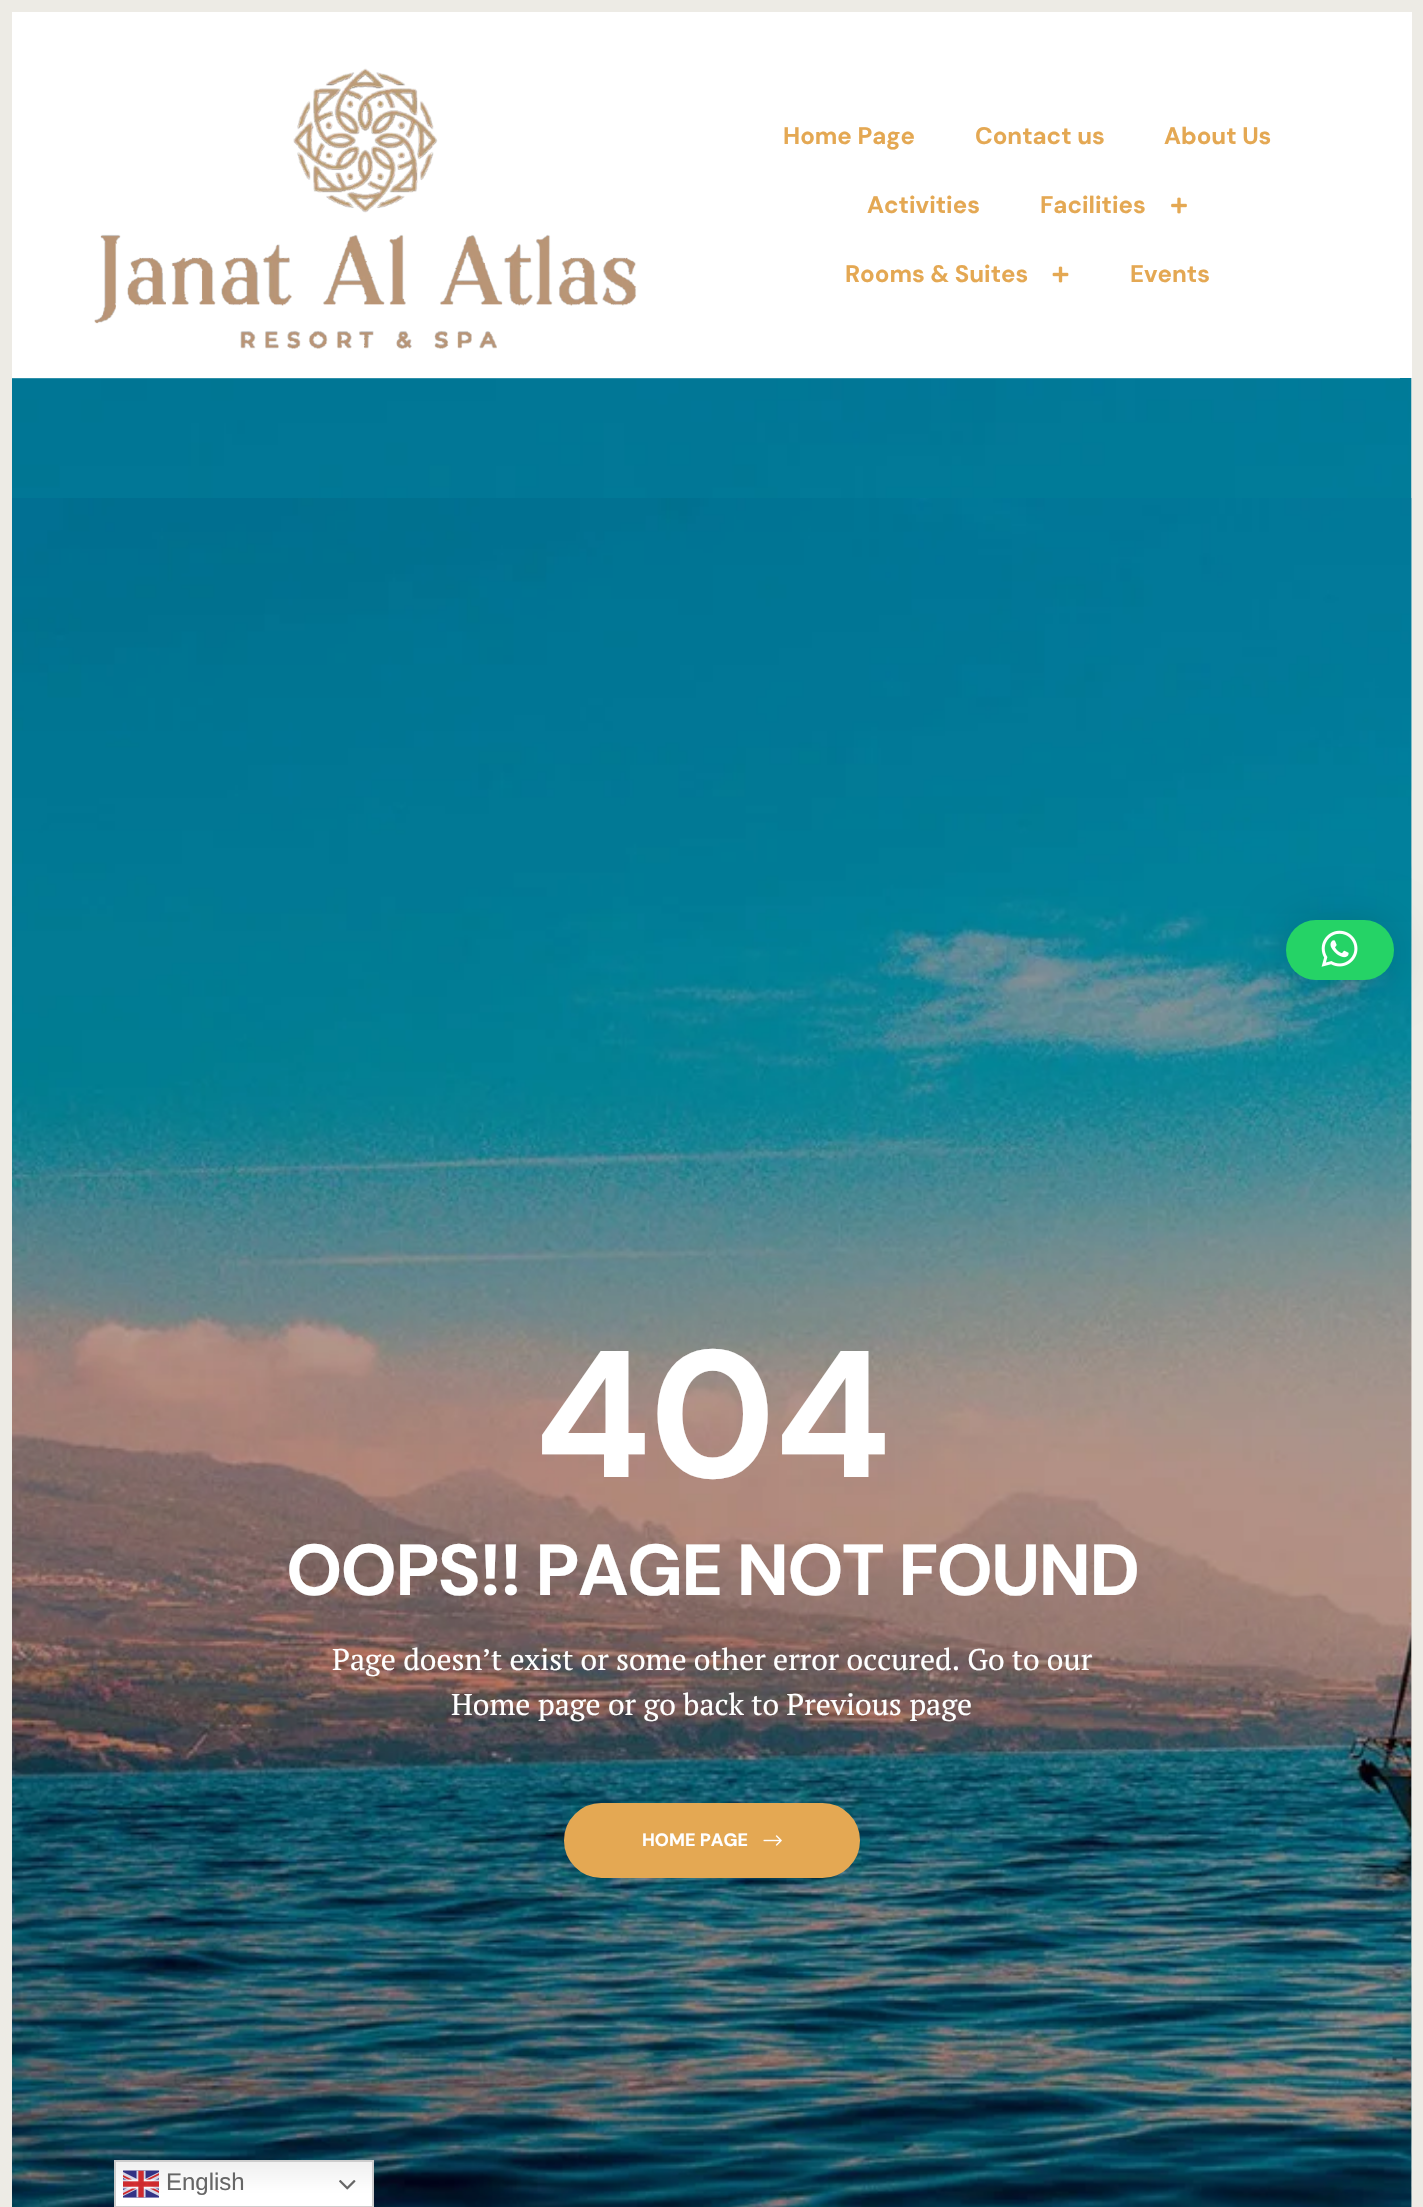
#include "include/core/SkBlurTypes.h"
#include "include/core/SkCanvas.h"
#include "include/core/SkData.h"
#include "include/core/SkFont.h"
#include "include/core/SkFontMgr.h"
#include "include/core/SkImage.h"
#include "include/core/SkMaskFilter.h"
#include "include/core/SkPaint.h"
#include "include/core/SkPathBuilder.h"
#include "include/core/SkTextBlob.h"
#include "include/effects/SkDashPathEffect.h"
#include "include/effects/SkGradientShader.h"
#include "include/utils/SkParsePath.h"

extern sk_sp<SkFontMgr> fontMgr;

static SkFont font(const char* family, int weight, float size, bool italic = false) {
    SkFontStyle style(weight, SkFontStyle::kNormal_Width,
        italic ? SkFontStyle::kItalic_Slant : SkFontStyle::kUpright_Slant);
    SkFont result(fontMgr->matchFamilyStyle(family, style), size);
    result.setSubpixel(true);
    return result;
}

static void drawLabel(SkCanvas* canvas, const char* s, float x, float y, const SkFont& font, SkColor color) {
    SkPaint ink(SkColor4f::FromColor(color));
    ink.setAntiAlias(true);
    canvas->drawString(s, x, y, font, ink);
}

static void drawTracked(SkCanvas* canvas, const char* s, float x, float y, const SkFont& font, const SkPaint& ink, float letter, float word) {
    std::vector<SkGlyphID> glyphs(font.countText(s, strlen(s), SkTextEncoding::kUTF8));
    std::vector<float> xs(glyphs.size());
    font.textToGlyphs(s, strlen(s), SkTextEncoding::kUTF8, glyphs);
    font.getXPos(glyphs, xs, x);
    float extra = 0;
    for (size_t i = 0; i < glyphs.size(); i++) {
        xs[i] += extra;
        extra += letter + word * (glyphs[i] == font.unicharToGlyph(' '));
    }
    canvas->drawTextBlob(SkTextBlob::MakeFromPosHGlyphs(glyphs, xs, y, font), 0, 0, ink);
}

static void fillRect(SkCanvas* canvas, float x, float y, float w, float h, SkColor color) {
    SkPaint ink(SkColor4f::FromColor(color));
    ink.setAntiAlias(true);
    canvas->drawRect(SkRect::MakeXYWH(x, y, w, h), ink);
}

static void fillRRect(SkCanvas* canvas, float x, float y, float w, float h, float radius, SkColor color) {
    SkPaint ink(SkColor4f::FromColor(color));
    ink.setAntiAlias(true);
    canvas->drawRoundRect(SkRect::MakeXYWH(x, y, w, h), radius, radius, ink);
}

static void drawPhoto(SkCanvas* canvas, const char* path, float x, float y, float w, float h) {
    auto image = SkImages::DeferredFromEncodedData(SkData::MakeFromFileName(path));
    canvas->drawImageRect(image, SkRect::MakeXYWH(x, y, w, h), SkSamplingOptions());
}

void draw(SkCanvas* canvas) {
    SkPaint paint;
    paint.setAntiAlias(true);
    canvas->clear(0xFFEDEBE5);
    fillRect(canvas, 12, 12, 1400, 366, 0xFFFFFFFF);
    drawPhoto(canvas, "assets/img4.png", 12, 378, 1400, 1829);
    fillRect(canvas, 12, 378, 1388, 1, 0x30FFFFFF);
    drawPhoto(canvas, "assets/img1.png", 94, 68, 543, 281);
    SkFont font1 = font("DM Sans", 700, 24);
    drawLabel(canvas, "Home Page", 783, 144, font1, 0xFFE4A853);
    drawLabel(canvas, "Contact us", 975, 144, font1, 0xFFE4A853);
    drawLabel(canvas, "About Us", 1164, 144, font1, 0xFFE4A853);
    drawLabel(canvas, "Activities", 867, 213, font1, 0xFFE4A853);
    drawLabel(canvas, "Facilities", 1040, 213, font1, 0xFFE4A853);
    drawPhoto(canvas, "assets/img2.png", 1171, 197, 16, 17);
    drawLabel(canvas, "Rooms & Suites", 845, 282, font1, 0xFFE4A853);
    drawPhoto(canvas, "assets/img3.png", 1052, 266, 17, 17);
    drawLabel(canvas, "Events", 1130, 282, font1, 0xFFE4A853);
    drawPhoto(canvas, "assets/img5.png", 12, 498, 1400, 1709);
    SkFont font2 = font("DM Sans", 700, 180);
    paint.setColor(0xFFFFFFFF);
    drawTracked(canvas, "404", 534, 1477, font2, paint, -1.8f, 0);
    SkFont font3 = font("DM Sans", 700, 72);
    drawTracked(canvas, "OOPS!! PAGE NOT FOUND", 286, 1595, font3, paint, -1.8f, 0);
    SkFont font4 = font("PT Serif", 400, 30);
    drawLabel(canvas, "Page doesn’t exist or some other error occured. Go to our", 332, 1670, font4, 0xFFFFFFFF);
    drawLabel(canvas, "Home page or go back to Previous page", 451, 1715, font4, 0xFFFFFFFF);
    paint.setColor(0xFFE4A853);
    canvas->drawRoundRect(SkRect::MakeXYWH(565, 1804, 294, 73), 36.5f, 36.5f, paint);
    paint.setStroke(true);
    paint.setStrokeWidth(2);
    canvas->drawRoundRect(SkRect::MakeXYWH(565, 1804, 294, 73), 36.5f, 36.5f, paint);
    SkFont font5 = font("DM Sans", 700, 18);
    drawLabel(canvas, "HOME PAGE", 642, 1846, font5, 0xFFFFFFFF);
    drawPhoto(canvas, "assets/img6.png", 763, 1835, 19, 11);
    paint.setStroke(false);
    paint.setColor(0x29000000);
    paint.setMaskFilter(SkMaskFilter::MakeBlur(kNormal_SkBlurStyle, 24));
    canvas->drawRoundRect(SkRect::MakeXYWH(1286, 923, 108, 60), 30, 30, paint);
    paint.setMaskFilter(nullptr);
    fillRRect(canvas, 1286, 920, 108, 60, 30, 0xFF25D366);
    drawPhoto(canvas, "assets/img7.png", 1321, 930, 37, 37);
    {
        const SkColor colors[] = {0xFFEFEFEF, 0xFFFFFFFF};
        const float stops[] = {0, 0.7f};
        const SkPoint ends[] = {{244, 2160}, {244, 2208}};
        paint.setShader(SkGradientShader::MakeLinear(ends, colors, stops, 2, SkTileMode::kClamp));
        paint.setAlpha(255);
    }
    canvas->drawRect(SkRect::MakeXYWH(116, 2162, 256, 44), paint);
    paint.setStroke(true);
    paint.setShader(nullptr);
    paint.setColor(0xFFCCCCCC);
    canvas->drawRect(SkRect::MakeXYWH(115, 2161, 258, 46), paint);
    drawPhoto(canvas, "assets/img8.png", 123, 2170, 36, 28);
    SkFont font6 = font("Liberation Sans", 400, 24);
    drawLabel(canvas, "English", 166, 2190, font6, 0xFF666666);
    drawPhoto(canvas, "assets/img9.png", 339, 2180, 17, 10);
}
